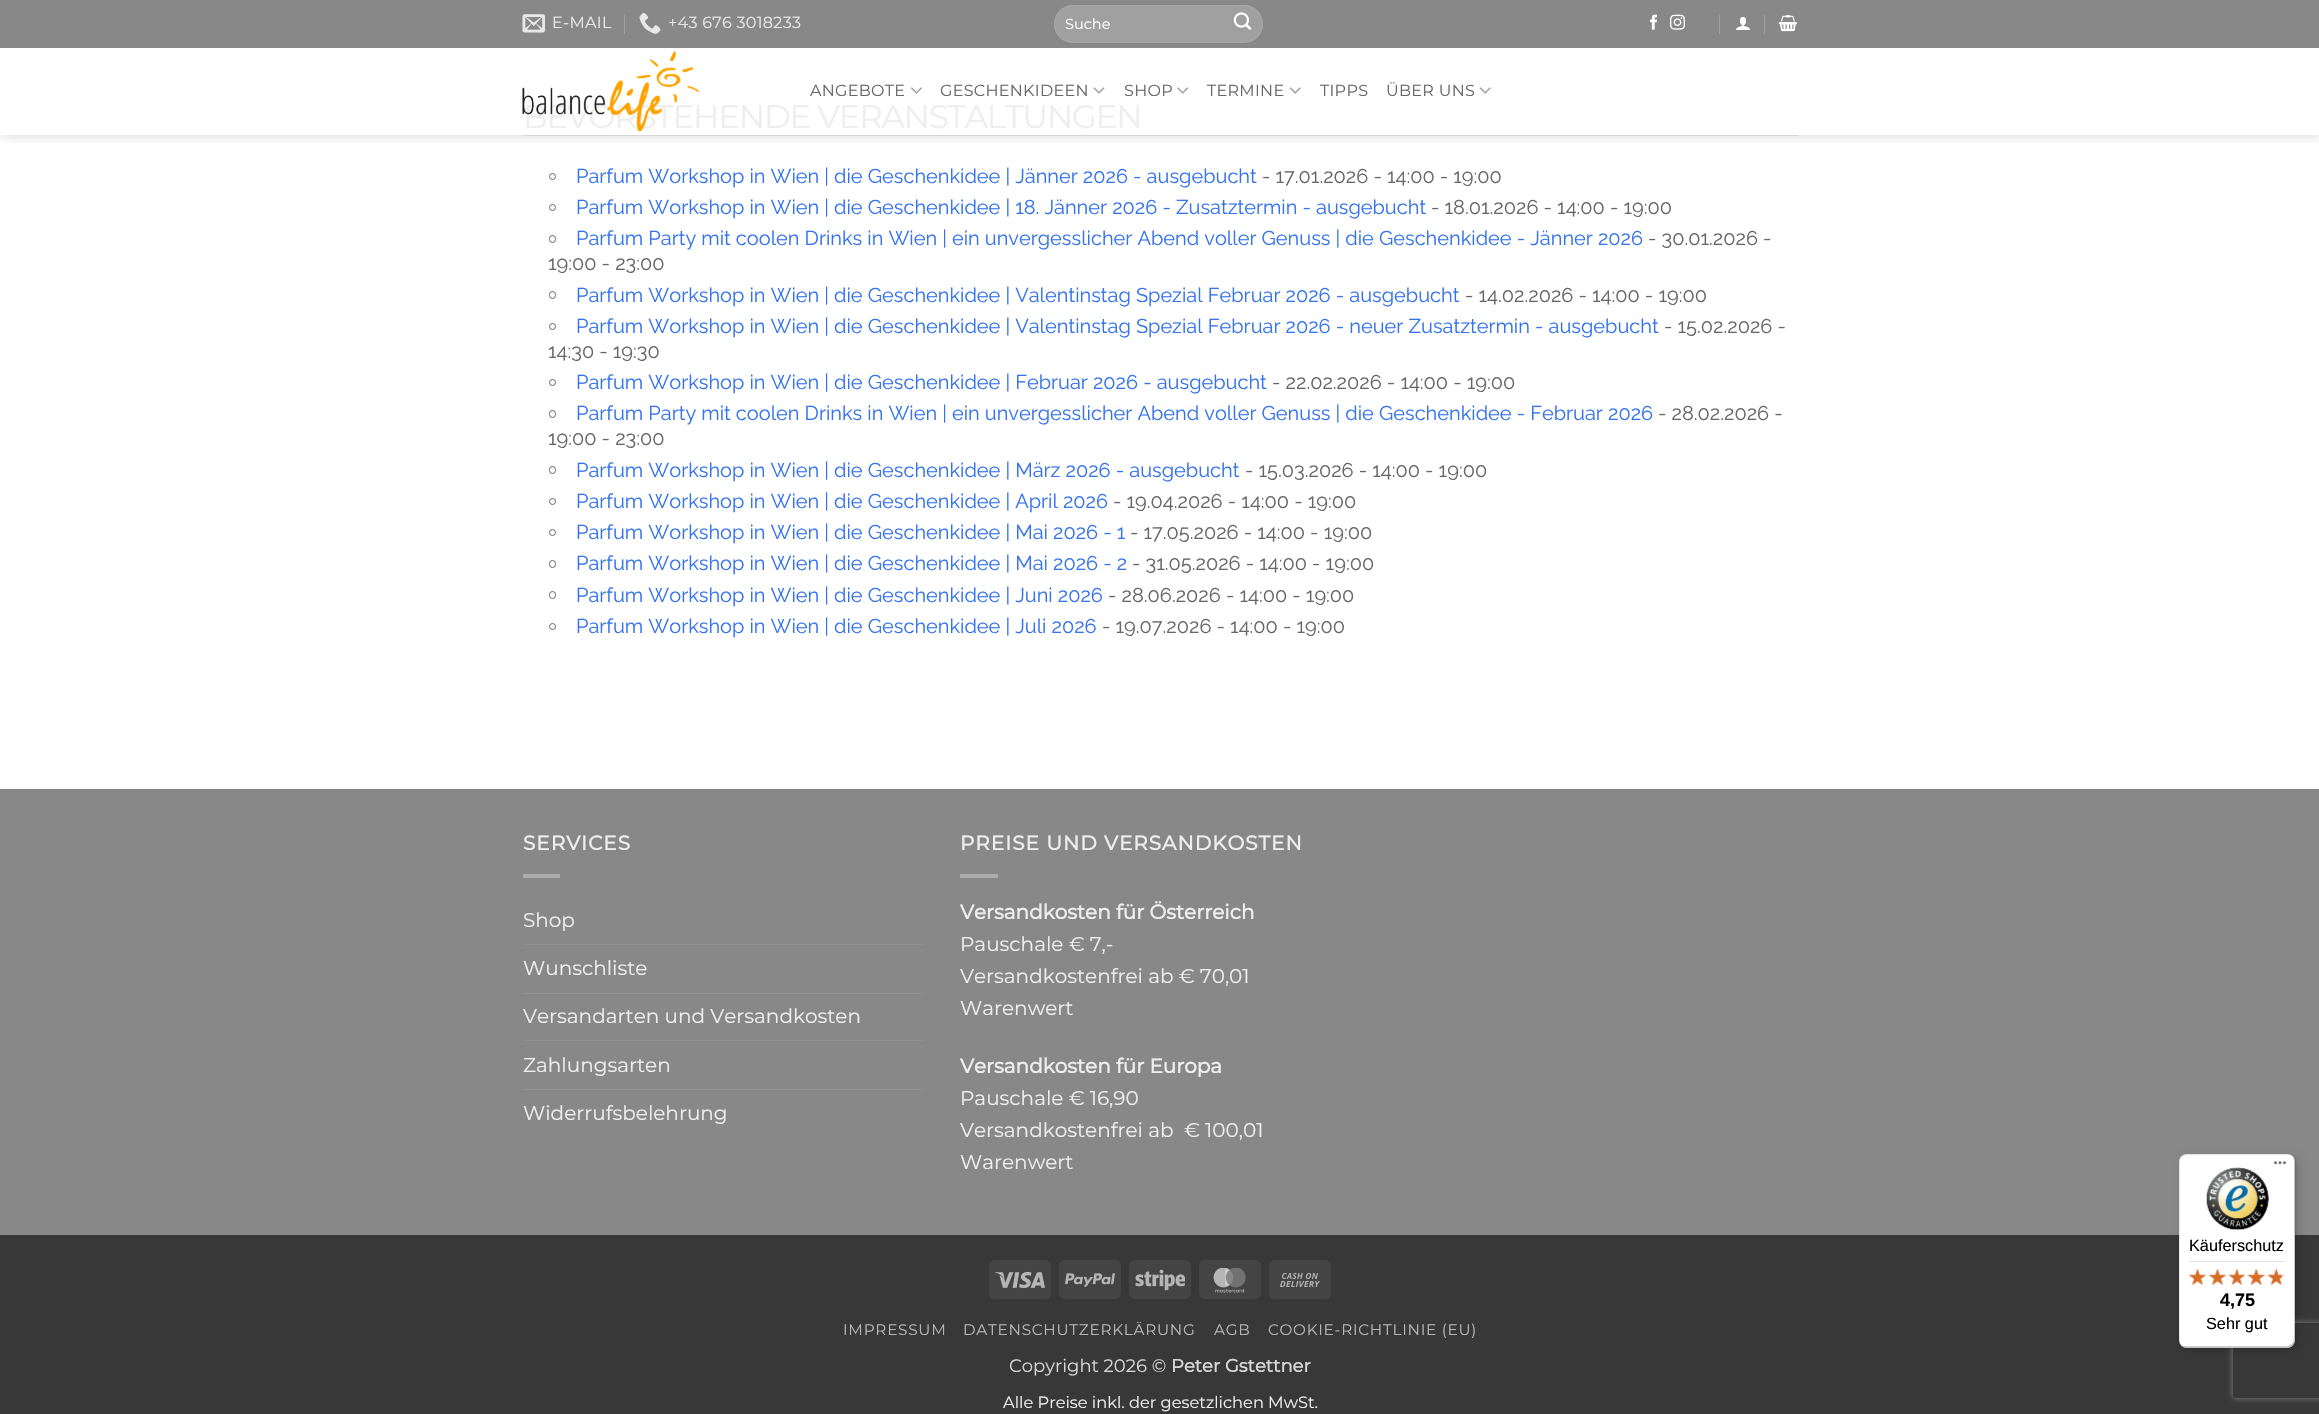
#include "include/core/SkBlurTypes.h"
#include "include/core/SkCanvas.h"
#include "include/core/SkData.h"
#include "include/core/SkFont.h"
#include "include/core/SkFontMgr.h"
#include "include/core/SkImage.h"
#include "include/core/SkMaskFilter.h"
#include "include/core/SkPaint.h"
#include "include/core/SkPathBuilder.h"
#include "include/core/SkTextBlob.h"
#include "include/effects/SkDashPathEffect.h"
#include "include/effects/SkGradientShader.h"
#include "include/utils/SkParsePath.h"

extern sk_sp<SkFontMgr> fontMgr;

static SkFont font(const char* family, int weight, float size, bool italic = false) {
    SkFontStyle style(weight, SkFontStyle::kNormal_Width,
        italic ? SkFontStyle::kItalic_Slant : SkFontStyle::kUpright_Slant);
    SkFont result(fontMgr->matchFamilyStyle(family, style), size);
    result.setSubpixel(true);
    return result;
}

static void drawLabel(SkCanvas* canvas, const char* s, float x, float y, const SkFont& font, SkColor color) {
    SkPaint ink(SkColor4f::FromColor(color));
    ink.setAntiAlias(true);
    canvas->drawString(s, x, y, font, ink);
}

static void drawTracked(SkCanvas* canvas, const char* s, float x, float y, const SkFont& font, const SkPaint& ink, float letter, float word) {
    std::vector<SkGlyphID> glyphs(font.countText(s, strlen(s), SkTextEncoding::kUTF8));
    std::vector<float> xs(glyphs.size());
    font.textToGlyphs(s, strlen(s), SkTextEncoding::kUTF8, glyphs);
    font.getXPos(glyphs, xs, x);
    float extra = 0;
    for (size_t i = 0; i < glyphs.size(); i++) {
        xs[i] += extra;
        extra += letter + word * (glyphs[i] == font.unicharToGlyph(' '));
    }
    canvas->drawTextBlob(SkTextBlob::MakeFromPosHGlyphs(glyphs, xs, y, font), 0, 0, ink);
}

static void fillRect(SkCanvas* canvas, float x, float y, float w, float h, SkColor color) {
    SkPaint ink(SkColor4f::FromColor(color));
    ink.setAntiAlias(true);
    canvas->drawRect(SkRect::MakeXYWH(x, y, w, h), ink);
}

static void fillRRect(SkCanvas* canvas, float x, float y, float w, float h, float radius, SkColor color) {
    SkPaint ink(SkColor4f::FromColor(color));
    ink.setAntiAlias(true);
    canvas->drawRoundRect(SkRect::MakeXYWH(x, y, w, h), radius, radius, ink);
}

static void drawPhoto(SkCanvas* canvas, const char* path, float x, float y, float w, float h) {
    auto image = SkImages::DeferredFromEncodedData(SkData::MakeFromFileName(path));
    canvas->drawImageRect(image, SkRect::MakeXYWH(x, y, w, h), SkSamplingOptions());
}

static SkPath parsePath(const char* data, bool evenOdd = false) {
    SkPath result = *SkParsePath::FromSVGString(data);
    if (evenOdd) result.setFillType(SkPathFillType::kEvenOdd);
    return result;
}

void draw(SkCanvas* canvas) {
    SkPaint paint;
    paint.setAntiAlias(true);
    canvas->clear(0xFFFFFFFF);
    canvas->save();
    canvas->clipRect(SkRect::MakeXYWH(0, 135, 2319, 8));
    paint.setColor(0x26000000);
    paint.setMaskFilter(SkMaskFilter::MakeBlur(kNormal_SkBlurStyle, 6));
    canvas->drawRect(SkRect::MakeXYWH(1, 1, 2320, 135), paint);
    paint.setMaskFilter(nullptr);
    canvas->restore();
    fillRect(canvas, 0, 0, 2319, 48, 0xFF888888);
    drawPhoto(canvas, "assets/img1.png", 522, 14, 23, 19);
    SkFont font1 = font("Montserrat", 100, 16);
    paint.setColor(0xFFE7E7E7);
    drawTracked(canvas, "E-MAIL", 552, 28, font1, paint, 0.3f, 0);
    fillRect(canvas, 624, 15, 1, 19, 0xFFA0A0A0);
    drawPhoto(canvas, "assets/img2.png", 639, 12, 22, 22);
    drawTracked(canvas, "+43 676 3018233", 668, 28, font1, paint, 0.3f, 0);
    fillRRect(canvas, 1054, 5, 209, 38, 19, 0xFFA0A0A0);
    paint.setStroke(true);
    paint.setStrokeWidth(1);
    paint.setColor(0x17FFFFFF);
    canvas->drawRoundRect(SkRect::MakeXYWH(1054.5f, 5.5f, 208, 37), 18.5f, 18.5f, paint);
    SkFont font2 = font("Montserrat", 100, 14.5f);
    drawLabel(canvas, "Suche", 1065, 29, font2, 0xFFFFFFFF);
    drawPhoto(canvas, "assets/img3.png", 1233, 12, 19, 18);
    drawPhoto(canvas, "assets/img4.png", 1650, 14, 7, 16);
    drawPhoto(canvas, "assets/img5.png", 1670, 14, 15, 16);
    fillRect(canvas, 1719, 15, 1, 19, 0xFFA0A0A0);
    drawPhoto(canvas, "assets/img6.png", 1736, 17, 14, 13);
    fillRect(canvas, 1764, 15, 1, 19, 0xFFA0A0A0);
    drawPhoto(canvas, "assets/img7.png", 1778, 15, 19, 17);
    SkFont font3 = font("Montserrat", 100, 32.5f);
    paint.setStroke(false);
    paint.setColor(0xFFEEEEEE);
    drawTracked(canvas, "BEVORSTEHENDE VERANSTALTUNGEN", 523, 128, font3, paint, -1.25f, 0);
    drawPhoto(canvas, "assets/img8.png", 522, 51, 177, 81);
    paint.setColor(0xFF666666);
    drawTracked(canvas, "ANGEBOTE", 810, 96, font1, paint, 0.3f, 0);
    drawPhoto(canvas, "assets/img9.png", 910, 87, 12, 7);
    drawTracked(canvas, "GESCHENKIDEEN", 940, 96, font1, paint, 0.3f, 0);
    drawPhoto(canvas, "assets/img10.png", 1093, 87, 12, 7);
    drawTracked(canvas, "SHOP", 1124, 96, font1, paint, 0.3f, 0);
    drawPhoto(canvas, "assets/img11.png", 1177, 87, 12, 7);
    drawTracked(canvas, "TERMINE", 1207, 96, font1, paint, 0.3f, 0);
    drawPhoto(canvas, "assets/img12.png", 1289, 87, 12, 7);
    drawTracked(canvas, "TIPPS", 1320, 96, font1, paint, 0.3f, 0);
    drawTracked(canvas, "ÜBER UNS", 1386, 96, font1, paint, 0.3f, 0);
    drawPhoto(canvas, "assets/img12.png", 1479, 87, 12, 7);
    fillRect(canvas, 523, 135, 1275, 1, 0xFFD6D6D6);
    paint.setStroke(true);
    canvas->drawCircle(552.5f, 176.5f, 3, paint);
    SkFont font4 = font("Raleway", 400, 20);
    drawLabel(canvas, "Parfum Workshop in Wien | die Geschenkidee | Jänner 2026 - ausgebucht", 576, 183, font4, 0xFF3372F0);
    drawLabel(canvas, "- 17.01.2026 - 14:00 - 19:00", 1262, 183, font4, 0xFF666666);
    canvas->drawCircle(552.5f, 207.5f, 3, paint);
    drawLabel(canvas, "Parfum Workshop in Wien | die Geschenkidee | 18. Jänner 2026 - Zusatztermin - ausgebucht", 576, 214, font4, 0xFF3372F0);
    drawLabel(canvas, "- 18.01.2026 - 14:00 - 19:00", 1431, 214, font4, 0xFF666666);
    canvas->drawRoundRect(SkRect::MakeXYWH(549.5f, 235.5f, 6, 7), 3, 3, paint);
    drawLabel(canvas, "Parfum Party mit coolen Drinks in Wien | ein unvergesslicher Abend voller Genuss | die Geschenkidee - Jänner 2026", 576, 245, font4, 0xFF3372F0);
    drawLabel(canvas, "- 30.01.2026 -", 1648, 245, font4, 0xFF666666);
    drawLabel(canvas, "19:00 - 23:00", 548, 270, font4, 0xFF666666);
    canvas->drawRoundRect(SkRect::MakeXYWH(549.5f, 291.5f, 6, 7), 3, 3, paint);
    drawLabel(canvas, "Parfum Workshop in Wien | die Geschenkidee | Valentinstag Spezial Februar 2026 - ausgebucht", 576, 302, font4, 0xFF3372F0);
    drawLabel(canvas, "- 14.02.2026 - 14:00 - 19:00", 1465, 302, font4, 0xFF666666);
    canvas->drawCircle(552.5f, 326.5f, 3, paint);
    drawLabel(canvas, "Parfum Workshop in Wien | die Geschenkidee | Valentinstag Spezial Februar 2026 - neuer Zusatztermin - ausgebucht", 576, 333, font4, 0xFF3372F0);
    drawLabel(canvas, "- 15.02.2026 -", 1664, 333, font4, 0xFF666666);
    drawLabel(canvas, "14:30 - 19:30", 548, 358, font4, 0xFF666666);
    canvas->drawCircle(552.5f, 382.5f, 3, paint);
    drawLabel(canvas, "Parfum Workshop in Wien | die Geschenkidee | Februar 2026 - ausgebucht", 576, 389, font4, 0xFF3372F0);
    drawLabel(canvas, "- 22.02.2026 - 14:00 - 19:00", 1272, 389, font4, 0xFF666666);
    canvas->drawRoundRect(SkRect::MakeXYWH(549.5f, 410.5f, 6, 7), 3, 3, paint);
    drawLabel(canvas, "Parfum Party mit coolen Drinks in Wien | ein unvergesslicher Abend voller Genuss | die Geschenkidee - Februar 2026", 576, 420, font4, 0xFF3372F0);
    drawLabel(canvas, "- 28.02.2026 -", 1658, 420, font4, 0xFF666666);
    drawLabel(canvas, "19:00 - 23:00", 548, 445, font4, 0xFF666666);
    canvas->drawRoundRect(SkRect::MakeXYWH(549.5f, 466.5f, 6, 7), 3, 3, paint);
    drawLabel(canvas, "Parfum Workshop in Wien | die Geschenkidee | März 2026 - ausgebucht", 576, 477, font4, 0xFF3372F0);
    drawLabel(canvas, "- 15.03.2026 - 14:00 - 19:00", 1245, 477, font4, 0xFF666666);
    canvas->drawCircle(552.5f, 501.5f, 3, paint);
    drawLabel(canvas, "Parfum Workshop in Wien | die Geschenkidee | April 2026", 576, 508, font4, 0xFF3372F0);
    drawLabel(canvas, "- 19.04.2026 - 14:00 - 19:00", 1113, 508, font4, 0xFF666666);
    canvas->drawCircle(552.5f, 532.5f, 3, paint);
    drawLabel(canvas, "Parfum Workshop in Wien | die Geschenkidee | Mai 2026 - 1", 576, 539, font4, 0xFF3372F0);
    drawLabel(canvas, "- 17.05.2026 - 14:00 - 19:00", 1130, 539, font4, 0xFF666666);
    canvas->drawRoundRect(SkRect::MakeXYWH(549.5f, 560.5f, 6, 7), 3, 3, paint);
    drawLabel(canvas, "Parfum Workshop in Wien | die Geschenkidee | Mai 2026 - 2", 576, 570, font4, 0xFF3372F0);
    drawLabel(canvas, "- 31.05.2026 - 14:00 - 19:00", 1132, 570, font4, 0xFF666666);
    canvas->drawRoundRect(SkRect::MakeXYWH(549.5f, 591.5f, 6, 7), 3, 3, paint);
    drawLabel(canvas, "Parfum Workshop in Wien | die Geschenkidee | Juni 2026", 576, 602, font4, 0xFF3372F0);
    drawLabel(canvas, "- 28.06.2026 - 14:00 - 19:00", 1108, 602, font4, 0xFF666666);
    canvas->drawCircle(552.5f, 626.5f, 3, paint);
    drawLabel(canvas, "Parfum Workshop in Wien | die Geschenkidee | Juli 2026", 576, 633, font4, 0xFF3372F0);
    drawLabel(canvas, "- 19.07.2026 - 14:00 - 19:00", 1102, 633, font4, 0xFF666666);
    fillRect(canvas, 0, 790, 2319, 445, 0xFF888888);
    fillRect(canvas, 0, 789, 2319, 1, 0xFF818181);
    SkFont font5 = font("Montserrat", 700, 20);
    paint.setStroke(false);
    paint.setColor(0xFFEEEEEE);
    drawTracked(canvas, "SERVICES", 523, 850, font5, paint, 1, 0);
    fillRect(canvas, 523, 874, 37, 4, 0xFFACACAC);
    SkFont font6 = font("Montserrat", 100, 20);
    drawLabel(canvas, "Shop", 523, 927, font6, 0xFFEEEEEE);
    fillRect(canvas, 523, 944, 400, 1, 0xFF929292);
    drawLabel(canvas, "Wunschliste", 523, 975, font6, 0xFFEEEEEE);
    fillRect(canvas, 523, 993, 400, 1, 0xFF929292);
    drawLabel(canvas, "Versandarten und Versandkosten", 523, 1023, font6, 0xFFEEEEEE);
    fillRect(canvas, 523, 1040, 400, 1, 0xFF929292);
    drawLabel(canvas, "Zahlungsarten", 523, 1072, font6, 0xFFEEEEEE);
    fillRect(canvas, 523, 1089, 400, 1, 0xFF929292);
    drawLabel(canvas, "Widerrufsbelehrung", 523, 1120, font6, 0xFFEEEEEE);
    drawTracked(canvas, "PREISE UND VERSANDKOSTEN", 960, 850, font5, paint, 1, 0);
    fillRect(canvas, 960, 874, 38, 4, 0xFFACACAC);
    drawLabel(canvas, "Versandkosten für Österreich", 960, 919, font5, 0xFFEEEEEE);
    drawLabel(canvas, "Pauschale € 7,-", 960, 951, font6, 0xFFEEEEEE);
    drawLabel(canvas, "Versandkostenfrei ab € 70,01", 960, 983, font6, 0xFFEEEEEE);
    drawLabel(canvas, "Warenwert", 960, 1015, font6, 0xFFEEEEEE);
    drawLabel(canvas, "Versandkosten für Europa", 960, 1073, font5, 0xFFEEEEEE);
    drawLabel(canvas, "Pauschale € 16,90", 960, 1105, font6, 0xFFEEEEEE);
    drawLabel(canvas, "Versandkostenfrei ab  € 100,01", 960, 1137, font6, 0xFFEEEEEE);
    drawLabel(canvas, "Warenwert", 960, 1169, font6, 0xFFEEEEEE);
    fillRect(canvas, 0, 1235, 2319, 179, 0xFF383838);
    fillRRect(canvas, 989, 1260, 62, 39, 6, 0xFF444444);
    drawPhoto(canvas, "assets/img13.png", 995, 1271, 50, 18);
    fillRRect(canvas, 1059, 1260, 62, 39, 6, 0xFF444444);
    drawPhoto(canvas, "assets/img14.png", 1065, 1273, 50, 14);
    fillRRect(canvas, 1129, 1260, 62, 39, 6, 0xFF444444);
    drawPhoto(canvas, "assets/img15.png", 1135, 1269, 50, 22);
    fillRRect(canvas, 1199, 1260, 62, 39, 6, 0xFF444444);
    drawPhoto(canvas, "assets/img16.png", 1213, 1268, 33, 25);
    fillRRect(canvas, 1269, 1260, 62, 39, 6, 0xFF444444);
    drawPhoto(canvas, "assets/img17.png", 1280, 1273, 40, 14);
    SkFont font7 = font("Montserrat", 100, 15.25f);
    paint.setColor(0xFFB7B7B7);
    drawTracked(canvas, "IMPRESSUM", 843, 1335, font7, paint, 0.75f, 0);
    drawTracked(canvas, "DATENSCHUTZERKLÄRUNG", 963, 1335, font7, paint, 0.75f, 0);
    drawTracked(canvas, "AGB", 1214, 1335, font7, paint, 0.75f, 0);
    drawTracked(canvas, "COOKIE-RICHTLINIE (EU)", 1268, 1335, font7, paint, 0.75f, 0);
    SkFont font8 = font("Montserrat", 100, 18);
    drawLabel(canvas, "Copyright 2026 ©", 1009, 1372, font8, 0xFFD7D7D7);
    SkFont font9 = font("Montserrat", 700, 18);
    drawLabel(canvas, "Peter Gstettner", 1171, 1372, font9, 0xFFD7D7D7);
    SkFont font10 = font("Montserrat", 100, 16.25f);
    drawLabel(canvas, "Alle Preise inkl. der gesetzlichen MwSt.", 1003, 1408, font10, 0xFFEEEEEE);
    paint.setColor(0x26000000);
    paint.setMaskFilter(SkMaskFilter::MakeBlur(kNormal_SkBlurStyle, 5));
    canvas->drawRoundRect(SkRect::MakeXYWH(2183, 1158, 116, 193), 8, 8, paint);
    paint.setMaskFilter(nullptr);
    paint.setMaskFilter(SkMaskFilter::MakeBlur(kNormal_SkBlurStyle, 1));
    canvas->drawRoundRect(SkRect::MakeXYWH(2180, 1155, 116, 194), 8, 8, paint);
    paint.setMaskFilter(nullptr);
    canvas->save();
    canvas->clipPath(parsePath("M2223 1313H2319V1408H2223ZM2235.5 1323H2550.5C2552 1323 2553 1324 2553 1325.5V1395.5C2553 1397 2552 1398 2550.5 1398H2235.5C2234 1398 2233 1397 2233 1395.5V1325.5C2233 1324 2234 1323 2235.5 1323Z", true), true);
    paint.setColor(0xFF808080);
    paint.setMaskFilter(SkMaskFilter::MakeBlur(kNormal_SkBlurStyle, 3));
    canvas->drawRoundRect(SkRect::MakeXYWH(2233, 1323, 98, 75), 2.5f, 2.5f, paint);
    paint.setMaskFilter(nullptr);
    canvas->restore();
    fillRRect(canvas, 2179, 1154, 116, 194, 8, 0xFFFFFFFF);
    paint.setColor(0x1A000000);
    canvas->drawPath(parsePath("M2188 1155H2289H2292C2290 1155 2289 1154 2287 1154H2187C2183 1154 2179 1158 2179 1162V1340C2179 1342 2180 1345 2182 1346C2181 1345 2180 1343 2180 1341V1162C2180 1158 2183 1155 2188 1155Z"), paint);
    paint.setColor(0x33000000);
    canvas->drawPath(parsePath("M2180 1344C2182 1346 2184 1348 2187 1348H2287C2291 1348 2295 1344 2295 1340V1162C2295 1160 2294 1158 2293 1157L2294 1160V1339C2294 1343 2290 1346 2286 1346H2185C2183 1346 2181 1345 2180 1344Z"), paint);
    paint.setColor(0x33323232);
    canvas->drawPath(parsePath("M2181 1345C2183 1347 2185 1348 2187 1348H2287C2291 1348 2295 1344 2295 1340V1162C2295 1160 2294 1159 2294 1157V1160V1339C2294 1343 2291 1347 2287 1347H2186C2184 1347 2182 1346 2181 1345Z"), paint);
    paint.setColor(0x4DFFFFFF);
    canvas->drawPath(parsePath("M2182 1346C2183 1347 2185 1348 2187 1348H2287C2291 1348 2295 1344 2295 1340V1162C2295 1160 2294 1158 2293 1157L2294 1161V1339C2294 1344 2291 1347 2287 1347H2186Z"), paint);
    drawPhoto(canvas, "assets/img18.png", 2273, 1161, 13, 4);
    drawPhoto(canvas, "assets/img19.png", 2206, 1167, 63, 64);
    SkFont font11 = font("Liberation Sans", 400, 16.25f);
    drawLabel(canvas, "Käuferschutz", 2189, 1251, font11, 0xFF000000);
    fillRect(canvas, 2189, 1261, 96, 1, 0xFFE5E5E5);
    drawPhoto(canvas, "assets/img25.png", 2189, 1269, 17, 16);
    drawPhoto(canvas, "assets/img20.png", 2188, 1268, 18, 17);
    drawPhoto(canvas, "assets/img26.png", 2209, 1269, 17, 16);
    drawPhoto(canvas, "assets/img21.png", 2208, 1268, 19, 17);
    drawPhoto(canvas, "assets/img27.png", 2229, 1269, 16, 16);
    drawPhoto(canvas, "assets/img22.png", 2228, 1268, 17, 17);
    drawPhoto(canvas, "assets/img28.png", 2247, 1269, 18, 16);
    drawPhoto(canvas, "assets/img23.png", 2247, 1268, 18, 17);
    drawPhoto(canvas, "assets/img29.png", 2267, 1269, 18, 16);
    drawPhoto(canvas, "assets/img24.png", 2267, 1268, 15, 17);
    SkFont font12 = font("Liberation Sans", 700, 18);
    drawLabel(canvas, "4,75", 2220, 1306, font12, 0xFF000000);
    drawLabel(canvas, "Sehr gut", 2206, 1329, font11, 0xFF000000);
}
